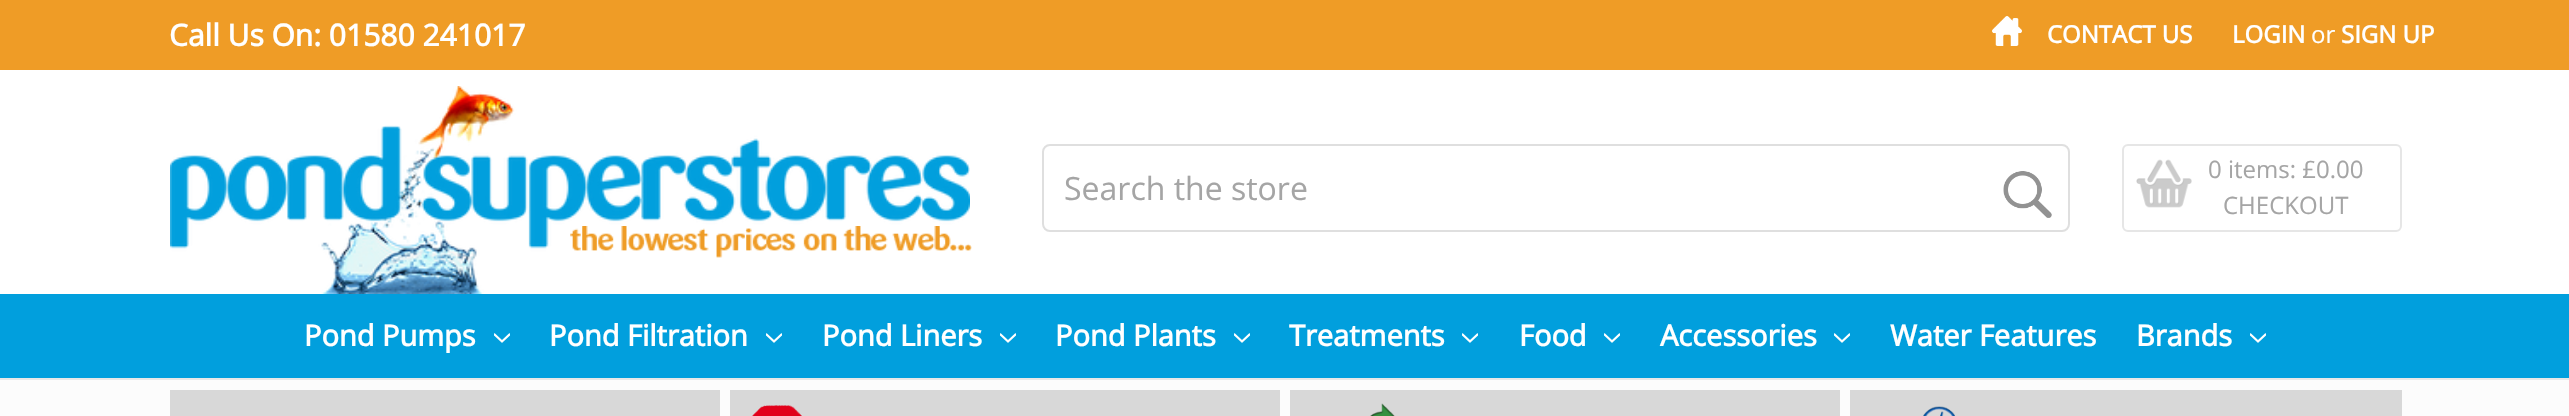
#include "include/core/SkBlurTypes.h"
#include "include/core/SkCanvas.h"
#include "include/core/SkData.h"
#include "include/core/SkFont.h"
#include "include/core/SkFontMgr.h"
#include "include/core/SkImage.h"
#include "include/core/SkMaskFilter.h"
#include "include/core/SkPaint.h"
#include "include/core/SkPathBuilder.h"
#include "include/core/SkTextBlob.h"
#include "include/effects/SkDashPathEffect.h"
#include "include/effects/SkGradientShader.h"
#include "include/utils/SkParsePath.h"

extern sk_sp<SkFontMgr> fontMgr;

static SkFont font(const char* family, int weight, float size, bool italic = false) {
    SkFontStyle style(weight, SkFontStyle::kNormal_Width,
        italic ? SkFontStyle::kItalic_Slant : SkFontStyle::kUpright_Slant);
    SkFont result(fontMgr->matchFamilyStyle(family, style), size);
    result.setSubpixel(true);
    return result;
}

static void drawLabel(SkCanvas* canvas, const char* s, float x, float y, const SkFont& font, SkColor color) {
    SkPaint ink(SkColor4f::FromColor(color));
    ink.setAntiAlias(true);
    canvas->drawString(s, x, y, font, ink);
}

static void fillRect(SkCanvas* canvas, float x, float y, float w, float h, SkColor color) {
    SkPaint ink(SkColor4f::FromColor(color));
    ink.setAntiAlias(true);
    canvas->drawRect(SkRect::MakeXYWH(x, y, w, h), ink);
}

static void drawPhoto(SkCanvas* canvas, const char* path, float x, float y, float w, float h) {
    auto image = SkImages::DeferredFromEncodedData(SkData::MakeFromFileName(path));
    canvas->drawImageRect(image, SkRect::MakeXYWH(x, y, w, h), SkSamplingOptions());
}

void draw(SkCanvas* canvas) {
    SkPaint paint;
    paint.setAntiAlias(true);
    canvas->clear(0xFFFFFFFF);
    fillRect(canvas, 0, 378, 2569, 2, 0xFFE8E8E8);
    fillRect(canvas, 0, 0, 2569, 70, 0xFFEF9C26);
    SkFont font1 = font("Open Sans", 700, 30);
    drawLabel(canvas, "Call Us On: 01580 241017", 169, 46, font1, 0xFFFFFFFF);
    drawPhoto(canvas, "assets/img1.png", 1992, 16, 30, 30);
    SkFont font2 = font("Open Sans", 700, 24);
    drawLabel(canvas, "CONTACT US", 2047, 43, font2, 0xFFFFFFFF);
    drawLabel(canvas, "LOGIN", 2232, 43, font2, 0xFFFFFFFF);
    SkFont font3 = font("Open Sans", 400, 24);
    drawLabel(canvas, "or", 2311, 43, font3, 0xFFFFFFFF);
    drawLabel(canvas, "SIGN UP", 2341, 43, font2, 0xFFFFFFFF);
    drawPhoto(canvas, "assets/img3.png", 570, 226, 402, 32);
    drawPhoto(canvas, "assets/img2.png", 170, 86, 800, 208);
    paint.setStroke(true);
    paint.setStrokeWidth(2);
    paint.setColor(0xFFDFDFDF);
    canvas->drawRoundRect(SkRect::MakeXYWH(1043, 145, 1026, 86), 7, 7, paint);
    SkFont font4 = font("Open Sans", 400, 32);
    drawLabel(canvas, "Search the store", 1064, 200, font4, 0xFFA5A5A5);
    drawPhoto(canvas, "assets/img4.png", 2003, 171, 49, 47);
    paint.setColor(0xFFE6E6E6);
    canvas->drawRoundRect(SkRect::MakeXYWH(2123, 145, 278, 86), 5, 5, paint);
    drawPhoto(canvas, "assets/img5.png", 2136, 159, 56, 49);
    drawLabel(canvas, "0 items: £0.00", 2208, 178, font3, 0xFFA5A5A5);
    drawLabel(canvas, "CHECKOUT", 2223, 214, font3, 0xFFA5A5A5);
    fillRect(canvas, 0, 294, 2569, 84, 0xFF019FDD);
    SkFont font5 = font("Open Sans", 700, 29);
    drawLabel(canvas, "Pond Pumps", 304, 346, font5, 0xFFFFFFFF);
    drawPhoto(canvas, "assets/img6.png", 494, 333, 16, 10);
    drawLabel(canvas, "Pond Filtration", 549, 346, font5, 0xFFFFFFFF);
    drawPhoto(canvas, "assets/img6.png", 766, 333, 16, 10);
    drawLabel(canvas, "Pond Liners", 822, 346, font5, 0xFFFFFFFF);
    drawPhoto(canvas, "assets/img6.png", 1000, 333, 16, 10);
    drawLabel(canvas, "Pond Plants", 1055, 346, font5, 0xFFFFFFFF);
    drawPhoto(canvas, "assets/img6.png", 1234, 333, 16, 10);
    drawLabel(canvas, "Treatments", 1289, 346, font5, 0xFFFFFFFF);
    drawPhoto(canvas, "assets/img6.png", 1462, 333, 16, 10);
    drawLabel(canvas, "Food", 1519, 346, font5, 0xFFFFFFFF);
    drawPhoto(canvas, "assets/img6.png", 1604, 333, 16, 10);
    drawLabel(canvas, "Accessories", 1660, 346, font5, 0xFFFFFFFF);
    drawPhoto(canvas, "assets/img6.png", 1834, 333, 16, 10);
    drawLabel(canvas, "Water Features", 1890, 346, font5, 0xFFFFFFFF);
    drawLabel(canvas, "Brands", 2136, 346, font5, 0xFFFFFFFF);
    drawPhoto(canvas, "assets/img6.png", 2250, 333, 16, 10);
    fillRect(canvas, 0, 380, 2569, 36, 0xFFFCFCFC);
    fillRect(canvas, 170, 390, 550, 26, 0xFFD8D8D8);
    fillRect(canvas, 730, 390, 550, 26, 0xFFD8D8D8);
    drawPhoto(canvas, "assets/img7.png", 752, 405, 50, 11);
    fillRect(canvas, 1290, 390, 550, 26, 0xFFD8D8D8);
    drawPhoto(canvas, "assets/img8.png", 1370, 403, 25, 13);
    fillRect(canvas, 1850, 390, 552, 26, 0xFFD8D8D8);
    drawPhoto(canvas, "assets/img9.png", 1923, 406, 32, 10);
}
